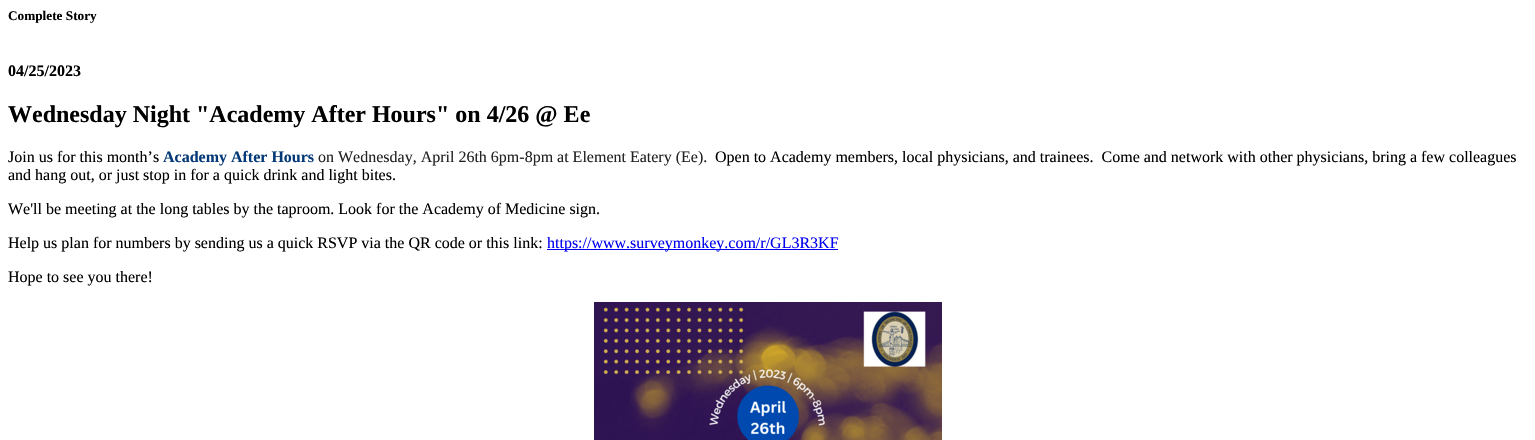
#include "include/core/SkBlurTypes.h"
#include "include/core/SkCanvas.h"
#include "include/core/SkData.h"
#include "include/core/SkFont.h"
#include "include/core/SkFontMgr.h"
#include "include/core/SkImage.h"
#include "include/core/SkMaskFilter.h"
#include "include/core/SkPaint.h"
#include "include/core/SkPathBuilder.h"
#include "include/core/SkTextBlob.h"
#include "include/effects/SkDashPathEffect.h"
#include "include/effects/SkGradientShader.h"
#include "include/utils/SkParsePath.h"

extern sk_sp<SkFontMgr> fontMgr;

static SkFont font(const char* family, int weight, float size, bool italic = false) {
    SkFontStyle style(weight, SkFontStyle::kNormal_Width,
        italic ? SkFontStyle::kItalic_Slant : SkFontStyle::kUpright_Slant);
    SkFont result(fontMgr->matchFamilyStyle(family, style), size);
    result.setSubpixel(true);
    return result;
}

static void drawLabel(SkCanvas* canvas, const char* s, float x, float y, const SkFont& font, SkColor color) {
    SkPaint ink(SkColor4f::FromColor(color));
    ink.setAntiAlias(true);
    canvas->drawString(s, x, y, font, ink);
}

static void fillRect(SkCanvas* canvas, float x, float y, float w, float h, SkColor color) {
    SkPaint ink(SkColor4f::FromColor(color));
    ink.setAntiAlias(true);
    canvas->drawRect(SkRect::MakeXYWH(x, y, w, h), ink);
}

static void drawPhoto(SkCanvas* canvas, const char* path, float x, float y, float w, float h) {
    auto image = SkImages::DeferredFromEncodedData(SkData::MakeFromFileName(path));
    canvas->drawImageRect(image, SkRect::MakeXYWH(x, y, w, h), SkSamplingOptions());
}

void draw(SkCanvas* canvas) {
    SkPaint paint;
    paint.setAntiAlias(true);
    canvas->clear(0xFFFFFFFF);
    SkFont font1 = font("Liberation Serif", 700, 13.25f);
    drawLabel(canvas, "Complete Story", 8, 20, font1, 0xFF000000);
    SkFont font2 = font("Liberation Serif", 700, 16);
    drawLabel(canvas, "04/25/2023", 8, 76, font2, 0xFF000000);
    SkFont font3 = font("Liberation Serif", 700, 24);
    drawLabel(canvas, "Wednesday Night \"Academy After Hours\" on 4/26 @ Ee", 8, 122, font3, 0xFF000000);
    SkFont font4 = font("Liberation Serif", 400, 16);
    drawLabel(canvas, "Join us for this month’s", 8, 162, font4, 0xFF000000);
    drawLabel(canvas, "Academy After Hours", 163, 162, font2, 0xFF033977);
    drawLabel(canvas, "on Wednesday, April 26th 6pm-8pm at Element Eatery (Ee).", 318, 162, font4, 0xFF222222);
    drawLabel(canvas, "Open to Academy members, local physicians, and trainees.  Come and network with other physicians, bring a few colleagues", 715, 162, font4, 0xFF000000);
    drawLabel(canvas, "and hang out, or just stop in for a quick drink and light bites.", 8, 180, font4, 0xFF000000);
    drawLabel(canvas, "We'll be meeting at the long tables by the taproom. Look for the Academy of Medicine sign.", 8, 214, font4, 0xFF000000);
    drawLabel(canvas, "Help us plan for numbers by sending us a quick RSVP via the QR code or this link:", 8, 248, font4, 0xFF000000);
    fillRect(canvas, 547, 249, 291, 1, 0xFF0000EE);
    drawLabel(canvas, "https://www.surveymonkey.com/r/GL3R3KF", 547, 248, font4, 0xFF0000EE);
    drawLabel(canvas, "Hope to see you there!", 8, 282, font4, 0xFF000000);
    drawPhoto(canvas, "assets/img1.png", 594, 302, 348, 138);
}
